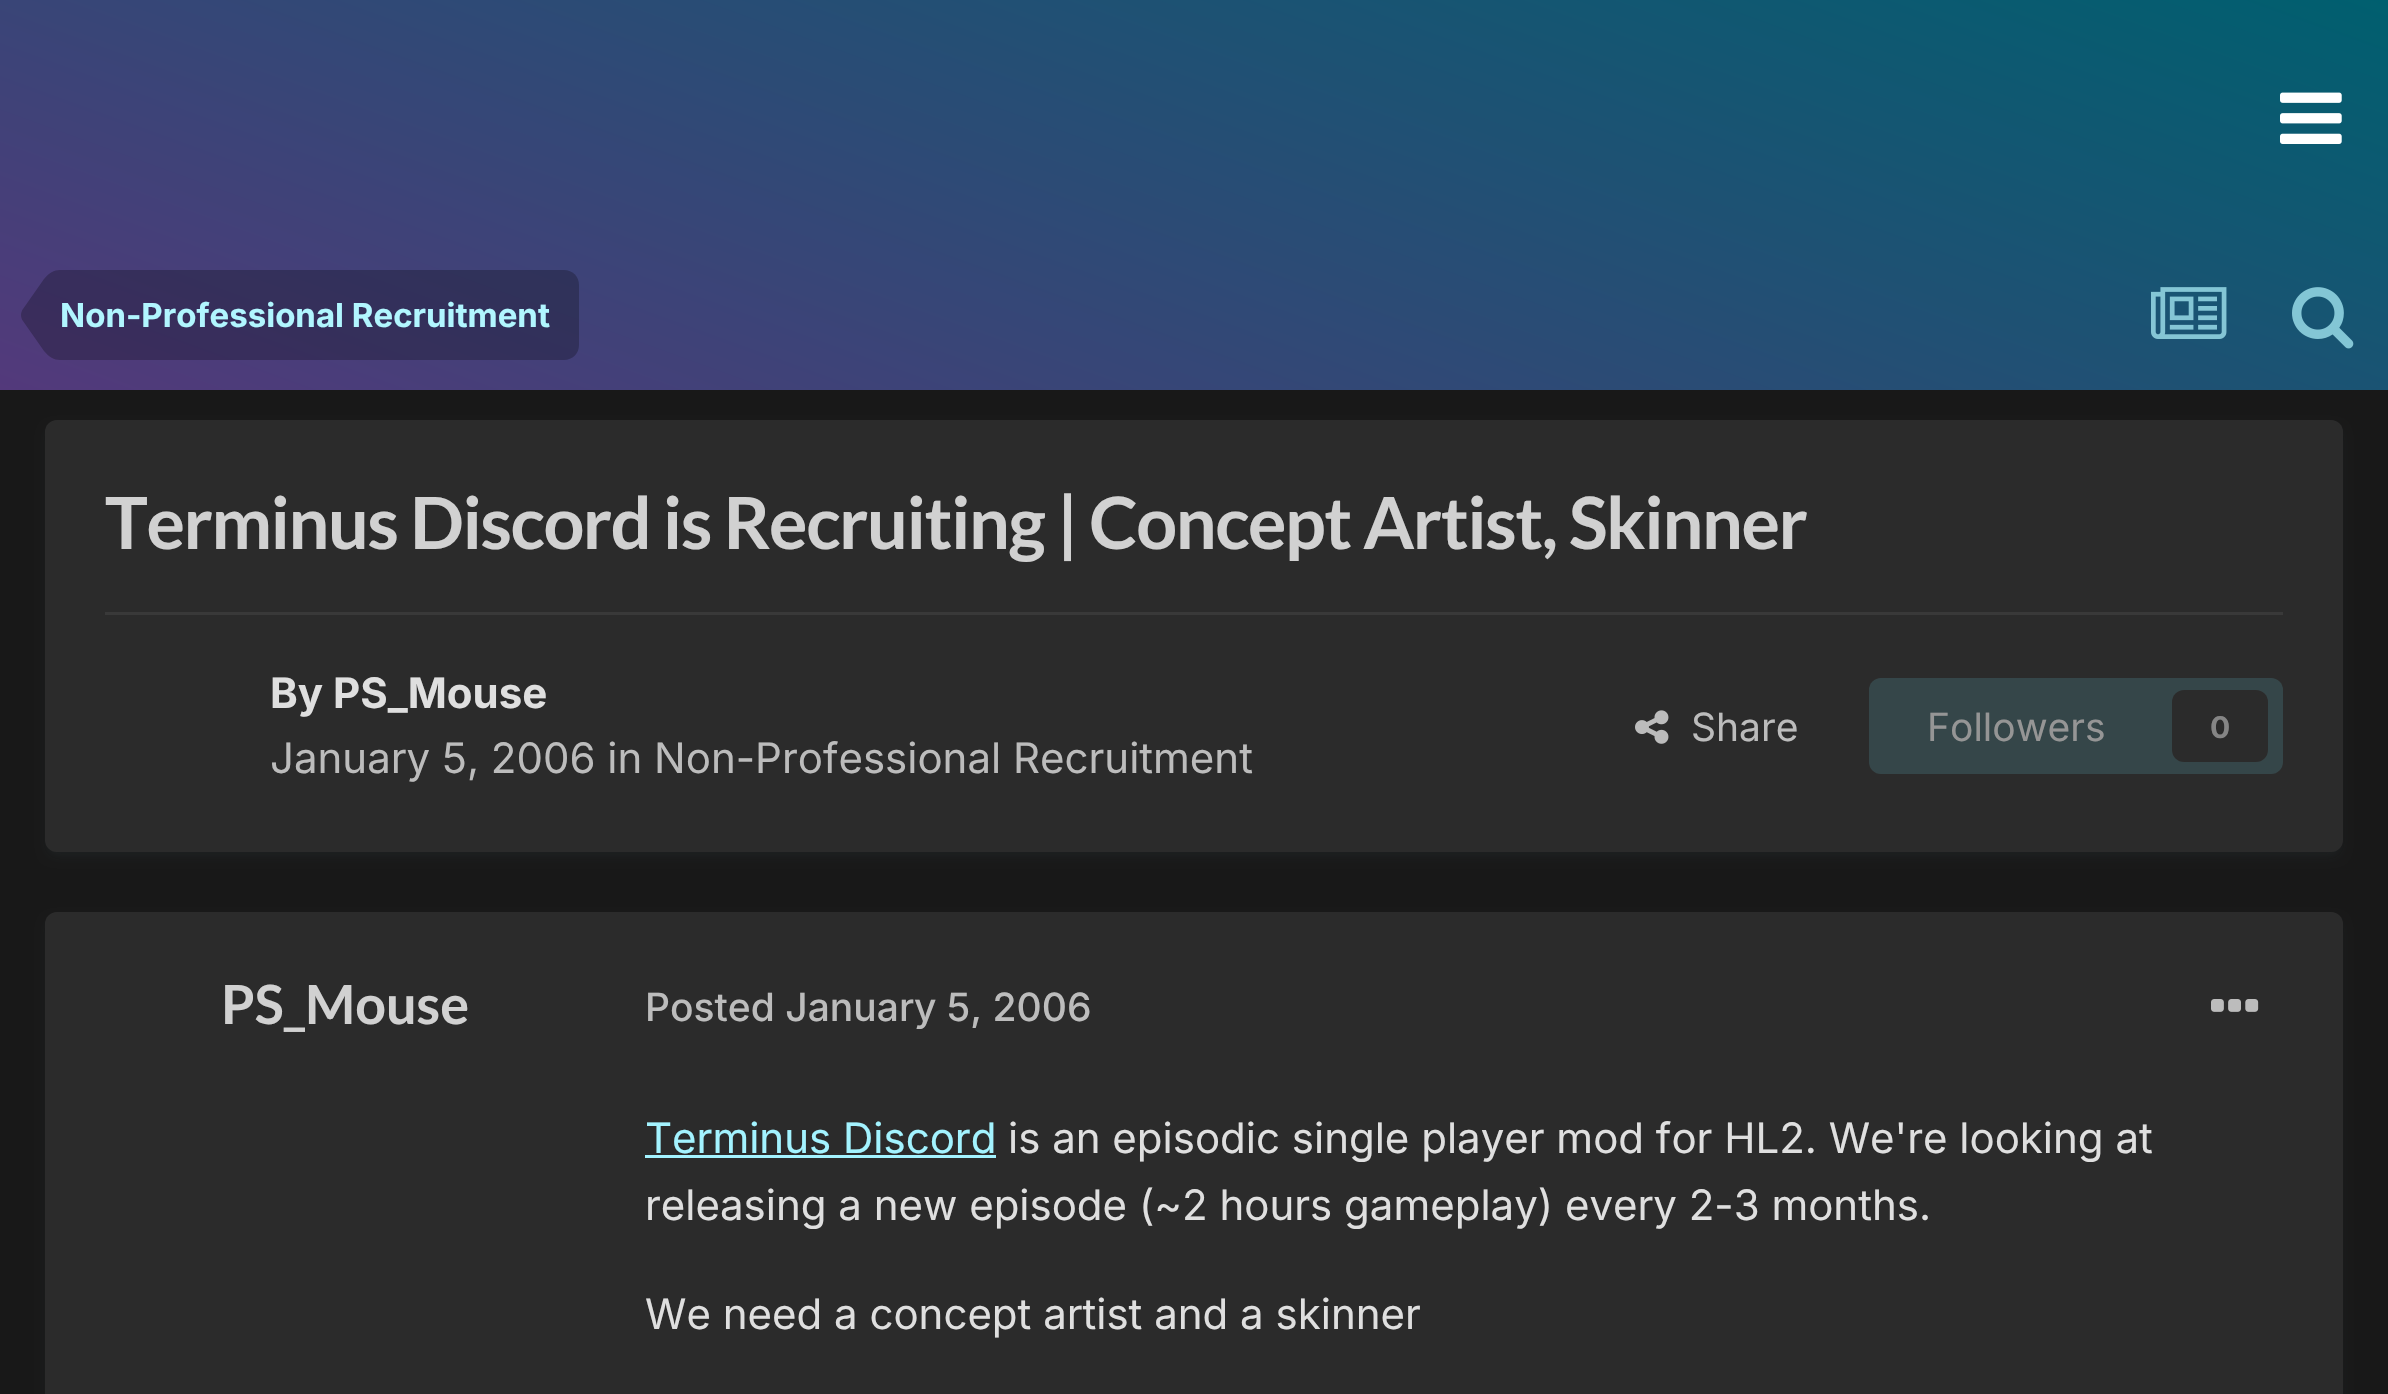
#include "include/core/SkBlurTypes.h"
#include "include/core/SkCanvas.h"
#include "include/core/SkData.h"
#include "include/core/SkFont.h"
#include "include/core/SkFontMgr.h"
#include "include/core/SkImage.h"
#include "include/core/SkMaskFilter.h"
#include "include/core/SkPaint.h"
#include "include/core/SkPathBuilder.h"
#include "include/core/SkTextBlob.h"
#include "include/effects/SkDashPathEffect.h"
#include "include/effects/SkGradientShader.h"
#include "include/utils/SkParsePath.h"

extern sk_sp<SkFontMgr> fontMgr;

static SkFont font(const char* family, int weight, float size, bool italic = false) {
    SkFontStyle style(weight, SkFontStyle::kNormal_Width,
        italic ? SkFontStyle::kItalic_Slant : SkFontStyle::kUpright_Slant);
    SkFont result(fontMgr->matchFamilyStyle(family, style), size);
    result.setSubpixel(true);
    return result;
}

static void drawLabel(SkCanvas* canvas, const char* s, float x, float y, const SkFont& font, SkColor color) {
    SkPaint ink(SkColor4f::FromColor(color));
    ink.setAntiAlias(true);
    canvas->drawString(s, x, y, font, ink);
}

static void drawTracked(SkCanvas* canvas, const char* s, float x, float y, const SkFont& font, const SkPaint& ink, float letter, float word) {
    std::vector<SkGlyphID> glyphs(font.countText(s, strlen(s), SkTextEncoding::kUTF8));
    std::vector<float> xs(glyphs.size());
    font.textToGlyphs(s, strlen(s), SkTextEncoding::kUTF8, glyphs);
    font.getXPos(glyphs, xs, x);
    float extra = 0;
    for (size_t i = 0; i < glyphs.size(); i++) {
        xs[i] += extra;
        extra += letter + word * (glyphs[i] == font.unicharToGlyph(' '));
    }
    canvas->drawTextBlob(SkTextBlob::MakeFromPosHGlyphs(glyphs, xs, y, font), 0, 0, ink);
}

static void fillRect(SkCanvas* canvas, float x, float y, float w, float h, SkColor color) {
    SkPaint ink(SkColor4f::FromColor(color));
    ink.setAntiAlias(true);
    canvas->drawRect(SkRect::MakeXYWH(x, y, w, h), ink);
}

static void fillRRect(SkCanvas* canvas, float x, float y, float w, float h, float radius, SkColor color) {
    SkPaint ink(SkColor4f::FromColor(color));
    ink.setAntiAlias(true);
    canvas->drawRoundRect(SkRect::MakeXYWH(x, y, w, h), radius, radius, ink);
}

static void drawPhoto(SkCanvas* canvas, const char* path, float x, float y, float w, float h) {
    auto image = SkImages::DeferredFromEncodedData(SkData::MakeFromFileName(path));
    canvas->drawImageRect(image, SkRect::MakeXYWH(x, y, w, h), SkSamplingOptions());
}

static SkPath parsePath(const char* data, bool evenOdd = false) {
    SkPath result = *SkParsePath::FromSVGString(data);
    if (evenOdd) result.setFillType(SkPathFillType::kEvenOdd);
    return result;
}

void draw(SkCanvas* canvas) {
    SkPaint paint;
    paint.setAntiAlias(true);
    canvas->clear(0xFF181818);
    {
        const SkColor colors[] = {0xFF005F6F, 0xFF53397B};
        const float stops[] = {0, 1};
        const SkPoint ends[] = {{1396, -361}, {992, 751}};
        paint.setShader(SkGradientShader::MakeLinear(ends, colors, stops, 2, SkTileMode::kClamp));
        paint.setAlpha(255);
    }
    canvas->drawRect(SkRect::MakeXYWH(0, 0, 2388, 390), paint);
    drawPhoto(canvas, "assets/img1.png", 2280, 92, 62, 52);
    paint.setShader(nullptr);
    paint.setColor(0x40000000);
    canvas->drawPath(parsePath("M60 270H564C572.5 270 579 276.5 579 285V345C579 353.5 572.5 360 564 360H60Z"), paint);
    canvas->drawPath(parsePath("M60 315V360C54 360 49 357 44 351L23 321C22 320 21 317 21 315Z"), paint);
    canvas->drawPath(parsePath("M60 315H21C21 313 22 310 23 309L44 279C49 273 54 270 60 270Z"), paint);
    SkFont font1 = font("Inter", 700, 33);
    drawLabel(canvas, "Non-Professional Recruitment", 60, 327, font1, 0xFFB1F6FF);
    drawPhoto(canvas, "assets/img2.png", 2151, 287, 76, 52);
    drawPhoto(canvas, "assets/img3.png", 2292, 287, 62, 62);
    paint.setColor(0x1A51787E);
    paint.setMaskFilter(SkMaskFilter::MakeBlur(kNormal_SkBlurStyle, 6));
    canvas->drawRoundRect(SkRect::MakeXYWH(48, 429, 2292, 426), 9, 9, paint);
    paint.setMaskFilter(nullptr);
    fillRRect(canvas, 45, 420, 2298, 432, 12, 0xFF2B2B2B);
    SkFont font2 = font("Lato", 700, 72);
    paint.setColor(0xFFD1D1D1);
    drawTracked(canvas, "Terminus Discord is Recruiting | Concept Artist, Skinner", 105, 549, font2, paint, -1.45f, 0);
    fillRect(canvas, 105, 612, 2178, 3, 0xFF393939);
    SkFont font3 = font("Inter", 700, 42);
    drawLabel(canvas, "By PS_Mouse", 270, 708, font3, 0xFFDFDFDF);
    SkFont font4 = font("Inter", 400, 42);
    drawLabel(canvas, "January 5, 2006 in Non-Professional Recruitment", 270, 773, font4, 0xFFBCBCBC);
    drawPhoto(canvas, "assets/img4.png", 1635, 710, 34, 34);
    SkFont font5 = font("Inter", 400, 39);
    drawLabel(canvas, "Share", 1691, 741, font5, 0xFFBCBCBC);
    fillRRect(canvas, 1869, 678, 414, 96, 12, 0xFF354649);
    drawLabel(canvas, "Followers", 1927, 741, font5, 0xFF959595);
    fillRRect(canvas, 2172, 690, 96, 72, 12, 0xFF2B2B2B);
    SkFont font6 = font("Inter", 700, 30);
    drawLabel(canvas, "0", 2210, 738, font6, 0xFF858585);
    paint.setColor(0x1A51787E);
    paint.setMaskFilter(SkMaskFilter::MakeBlur(kNormal_SkBlurStyle, 6));
    canvas->drawRoundRect(SkRect::MakeXYWH(48, 921, 2292, 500), 9, 9, paint);
    paint.setMaskFilter(nullptr);
    fillRRect(canvas, 45, 912, 2298, 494, 12, 0xFF2B2B2B);
    SkFont font7 = font("Lato", 700, 54);
    drawLabel(canvas, "PS_Mouse", 221, 1024, font7, 0xFFD1D1D1);
    SkFont font8 = font("Inter", 500, 39);
    drawLabel(canvas, "Posted January 5, 2006", 645, 1021, font8, 0xFFBCBCBC);
    drawPhoto(canvas, "assets/img5.png", 2211, 999, 48, 13);
    drawLabel(canvas, "Terminus Discord", 645, 1153, font4, 0xFFA3F3FF);
    fillRect(canvas, 645, 1155, 351, 3, 0xFFA3F3FF);
    drawLabel(canvas, "is an episodic single player mod for HL2. We're looking at", 1008, 1153, font4, 0xFFDFDFDF);
    drawLabel(canvas, "releasing a new episode (~2 hours gameplay) every 2-3 months.", 645, 1220, font4, 0xFFDFDFDF);
    drawLabel(canvas, "We need a concept artist and a skinner", 645, 1329, font4, 0xFFDFDFDF);
}
